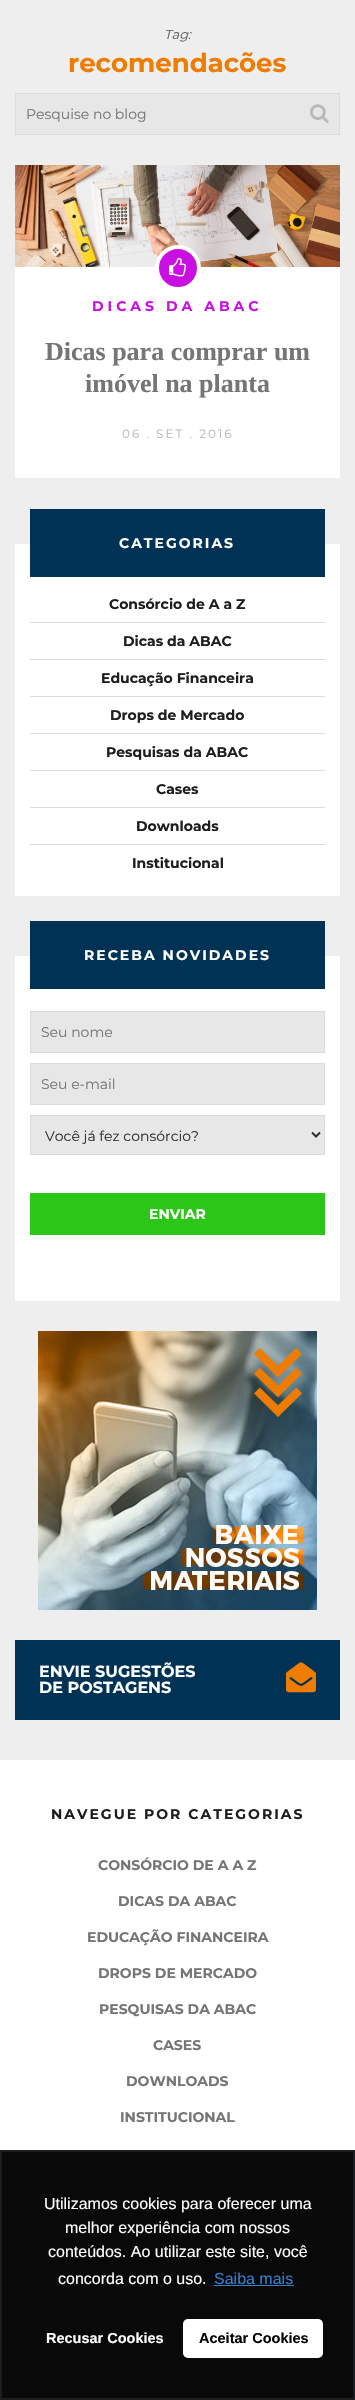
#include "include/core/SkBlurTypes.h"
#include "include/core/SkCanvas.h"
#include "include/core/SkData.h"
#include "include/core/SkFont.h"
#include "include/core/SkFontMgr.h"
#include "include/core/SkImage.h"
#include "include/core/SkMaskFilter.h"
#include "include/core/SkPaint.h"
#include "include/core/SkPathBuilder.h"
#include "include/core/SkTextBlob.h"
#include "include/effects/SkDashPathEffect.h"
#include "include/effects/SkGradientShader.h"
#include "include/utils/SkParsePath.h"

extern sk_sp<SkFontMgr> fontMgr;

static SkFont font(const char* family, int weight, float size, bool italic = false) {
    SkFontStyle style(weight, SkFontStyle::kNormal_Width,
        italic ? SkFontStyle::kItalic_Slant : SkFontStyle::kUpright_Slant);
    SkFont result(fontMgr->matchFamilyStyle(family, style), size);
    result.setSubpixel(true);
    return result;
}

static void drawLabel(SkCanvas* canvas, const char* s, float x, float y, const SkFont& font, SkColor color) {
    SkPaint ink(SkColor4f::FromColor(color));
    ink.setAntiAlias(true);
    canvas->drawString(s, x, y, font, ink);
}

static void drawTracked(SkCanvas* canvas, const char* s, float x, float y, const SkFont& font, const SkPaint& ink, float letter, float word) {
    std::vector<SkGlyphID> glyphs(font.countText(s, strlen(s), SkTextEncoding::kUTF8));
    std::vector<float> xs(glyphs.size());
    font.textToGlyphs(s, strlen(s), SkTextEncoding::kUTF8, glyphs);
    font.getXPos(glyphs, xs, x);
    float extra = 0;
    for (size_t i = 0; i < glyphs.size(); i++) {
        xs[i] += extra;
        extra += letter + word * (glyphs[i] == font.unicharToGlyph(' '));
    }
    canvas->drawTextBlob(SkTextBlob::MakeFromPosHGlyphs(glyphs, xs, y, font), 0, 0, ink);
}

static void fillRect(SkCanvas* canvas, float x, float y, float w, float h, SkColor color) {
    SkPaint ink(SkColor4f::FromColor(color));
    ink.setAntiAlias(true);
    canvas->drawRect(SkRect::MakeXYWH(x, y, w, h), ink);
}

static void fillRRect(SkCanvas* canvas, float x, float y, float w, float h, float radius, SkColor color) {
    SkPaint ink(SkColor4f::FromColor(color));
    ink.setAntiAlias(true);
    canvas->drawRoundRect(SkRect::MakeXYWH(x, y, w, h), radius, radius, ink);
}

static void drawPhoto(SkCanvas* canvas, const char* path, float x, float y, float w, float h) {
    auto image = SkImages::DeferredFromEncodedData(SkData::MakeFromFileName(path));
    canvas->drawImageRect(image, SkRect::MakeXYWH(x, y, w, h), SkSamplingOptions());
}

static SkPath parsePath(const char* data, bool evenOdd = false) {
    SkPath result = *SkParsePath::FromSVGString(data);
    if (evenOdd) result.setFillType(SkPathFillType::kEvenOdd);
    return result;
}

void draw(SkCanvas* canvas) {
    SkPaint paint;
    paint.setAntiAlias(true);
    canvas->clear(0xFFEEEEEE);
    SkFont font1 = font("Montserrat", 400, 13, true);
    drawLabel(canvas, "Tag:", 164, 39, font1, 0xFF5F5F5F);
    SkFont font2 = font("Montserrat", 700, 26);
    drawLabel(canvas, "recomendacões", 68, 72, font2, 0xFFED7C01);
    paint.setColor(0xFFE7E7E8);
    canvas->drawRect(SkRect::MakeXYWH(15.5f, 93.5f, 324, 41), paint);
    paint.setStroke(true);
    paint.setStrokeWidth(1);
    paint.setColor(0xFFDCDCDC);
    canvas->drawRect(SkRect::MakeXYWH(15.5f, 93.5f, 324, 41), paint);
    SkFont font3 = font("Montserrat", 400, 14);
    drawLabel(canvas, "Pesquise no blog", 26, 119, font3, 0xFF757575);
    drawPhoto(canvas, "assets/img1.png", 310, 104, 19, 19);
    fillRect(canvas, 15, 267, 325, 211, 0xFFFFFFFF);
    drawPhoto(canvas, "assets/img2.png", 15, 165, 325, 102);
    paint.setStroke(false);
    paint.setColor(0xFFCA0FE2);
    canvas->drawCircle(178, 268, 21, paint);
    paint.setStroke(true);
    paint.setStrokeWidth(4);
    paint.setColor(0xFFFFFFFF);
    canvas->drawCircle(178, 268, 21, paint);
    drawPhoto(canvas, "assets/img3.png", 169, 257, 18, 20);
    SkFont font4 = font("Montserrat", 700, 14);
    paint.setStroke(false);
    paint.setColor(0xFFCA0FE2);
    drawTracked(canvas, "DICAS DA ABAC", 92, 311, font4, paint, 4, 0);
    SkFont font5 = font("Liberation Serif", 700, 26);
    drawLabel(canvas, "Dicas para comprar um", 45, 360, font5, 0xFF757575);
    drawLabel(canvas, "imóvel na planta", 85, 392, font5, 0xFF757575);
    SkFont font6 = font("Montserrat", 400, 12);
    paint.setColor(0xFFB8B8B8);
    drawTracked(canvas, "06 . SET . 2016", 122, 438, font6, paint, 2, 0);
    fillRect(canvas, 15, 544, 325, 352, 0xFFFFFFFF);
    fillRect(canvas, 30, 509, 295, 68, 0xFF003255);
    paint.setColor(0xFFFFFFFF);
    drawTracked(canvas, "CATEGORIAS", 119, 548, font4, paint, 2, 0);
    fillRect(canvas, 30, 622, 295, 1, 0xFFDCDCDC);
    drawLabel(canvas, "Consórcio de A a Z", 109, 609, font4, 0xFF1E1E1E);
    fillRect(canvas, 30, 659, 295, 1, 0xFFDCDCDC);
    drawLabel(canvas, "Dicas da ABAC", 123, 646, font4, 0xFF1E1E1E);
    fillRect(canvas, 30, 696, 295, 1, 0xFFDCDCDC);
    drawLabel(canvas, "Educação Financeira", 101, 683, font4, 0xFF1E1E1E);
    fillRect(canvas, 30, 733, 295, 1, 0xFFDCDCDC);
    drawLabel(canvas, "Drops de Mercado", 110, 720, font4, 0xFF1E1E1E);
    fillRect(canvas, 30, 770, 295, 1, 0xFFDCDCDC);
    drawLabel(canvas, "Pesquisas da ABAC", 106, 757, font4, 0xFF1E1E1E);
    fillRect(canvas, 30, 807, 295, 1, 0xFFDCDCDC);
    drawLabel(canvas, "Cases", 156, 794, font4, 0xFF1E1E1E);
    fillRect(canvas, 30, 844, 295, 1, 0xFFDCDCDC);
    drawLabel(canvas, "Downloads", 136, 831, font4, 0xFF1E1E1E);
    drawLabel(canvas, "Institucional", 132, 868, font4, 0xFF1E1E1E);
    fillRect(canvas, 15, 956, 325, 345, 0xFFFFFFFF);
    fillRect(canvas, 30, 921, 295, 68, 0xFF003255);
    drawTracked(canvas, "RECEBA NOVIDADES", 84, 960, font4, paint, 2, 0);
    paint.setColor(0xFFE7E7E8);
    canvas->drawRect(SkRect::MakeXYWH(30.5f, 1011.5f, 294, 41), paint);
    paint.setStroke(true);
    paint.setStrokeWidth(1);
    paint.setColor(0xFFDCDCDC);
    canvas->drawRect(SkRect::MakeXYWH(30.5f, 1011.5f, 294, 41), paint);
    drawLabel(canvas, "Seu nome", 41, 1037, font3, 0xFF757575);
    paint.setStroke(false);
    paint.setColor(0xFFE7E7E8);
    canvas->drawRect(SkRect::MakeXYWH(30.5f, 1063.5f, 294, 41), paint);
    paint.setStroke(true);
    paint.setColor(0xFFDCDCDC);
    canvas->drawRect(SkRect::MakeXYWH(30.5f, 1063.5f, 294, 41), paint);
    drawLabel(canvas, "Seu e-mail", 41, 1089, font3, 0xFF757575);
    paint.setStroke(false);
    paint.setColor(0xFFE7E7E8);
    canvas->drawRect(SkRect::MakeXYWH(30.5f, 1115.5f, 294, 39), paint);
    paint.setStroke(true);
    paint.setColor(0xFFDCDCDC);
    canvas->drawRect(SkRect::MakeXYWH(30.5f, 1115.5f, 294, 39), paint);
    paint.setStrokeWidth(2);
    paint.setColor(0xFF2E2E2E);
    canvas->drawPath(parsePath("M312 1132.5L316 1136.5L320 1132.5"), paint);
    drawLabel(canvas, "Você já fez consórcio?", 45, 1141, font3, 0xFF2E2E2E);
    fillRect(canvas, 30, 1193, 295, 42, 0xFF2BC617);
    drawLabel(canvas, "ENVIAR", 149, 1219, font4, 0xFFFFFFFF);
    drawPhoto(canvas, "assets/img4.png", 38, 1331, 279, 279);
    fillRect(canvas, 15, 1640, 325, 80, 0xFF003255);
    SkFont font7 = font("Montserrat", 700, 16);
    drawLabel(canvas, "ENVIE SUGESTÕES", 39, 1677, font7, 0xFFFFFFFF);
    drawPhoto(canvas, "assets/img5.png", 286, 1662, 30, 31);
    drawLabel(canvas, "DE POSTAGENS", 39, 1693, font7, 0xFFFFFFFF);
    fillRect(canvas, 0, 1760, 355, 390, 0xFFFFFFFF);
    paint.setStroke(false);
    paint.setColor(0xFF1E1E1E);
    drawTracked(canvas, "NAVEGUE POR CATEGORIAS", 51, 1819, font4, paint, 2, 0);
    drawLabel(canvas, "CONSÓRCIO DE A A Z", 98, 1870, font4, 0xFF757575);
    drawLabel(canvas, "DICAS DA ABAC", 118, 1906, font4, 0xFF757575);
    drawLabel(canvas, "EDUCAÇÃO FINANCEIRA", 87, 1942, font4, 0xFF757575);
    drawLabel(canvas, "DROPS DE MERCADO", 98, 1978, font4, 0xFF757575);
    drawLabel(canvas, "PESQUISAS DA ABAC", 99, 2014, font4, 0xFF757575);
    drawLabel(canvas, "CASES", 153, 2050, font4, 0xFF757575);
    drawLabel(canvas, "DOWNLOADS", 126, 2086, font4, 0xFF757575);
    drawLabel(canvas, "INSTITUCIONAL", 120, 2122, font4, 0xFF757575);
    paint.setColor(0xFF090909);
    canvas->drawRect(SkRect::MakeXYWH(1, 2151, 353, 248), paint);
    paint.setStroke(true);
    paint.setColor(0xFF1B1D20);
    canvas->drawRect(SkRect::MakeXYWH(1, 2151, 353, 248), paint);
    SkFont font8 = font("Liberation Sans", 400, 16);
    drawLabel(canvas, "Utilizamos cookies para oferecer uma", 44, 2209, font8, 0xFFFFFFFF);
    drawLabel(canvas, "melhor experiência com nossos", 65, 2233, font8, 0xFFFFFFFF);
    drawLabel(canvas, "conteúdos. Ao utilizar este site, você", 48, 2257, font8, 0xFFFFFFFF);
    drawLabel(canvas, "concorda com o uso.", 58, 2284, font8, 0xFFFFFFFF);
    drawLabel(canvas, "Saiba mais", 214, 2284, font8, 0xFF357FCE);
    fillRect(canvas, 214, 2285, 80, 1, 0xFF357FCE);
    SkFont font9 = font("Liberation Sans", 700, 14.5f);
    drawLabel(canvas, "Recusar Cookies", 46, 2343, font9, 0xFFFFFFFF);
    fillRRect(canvas, 183, 2319, 140, 39, 5, 0xFFFFFFFF);
    drawLabel(canvas, "Aceitar Cookies", 199, 2343, font9, 0xFF000000);
}
